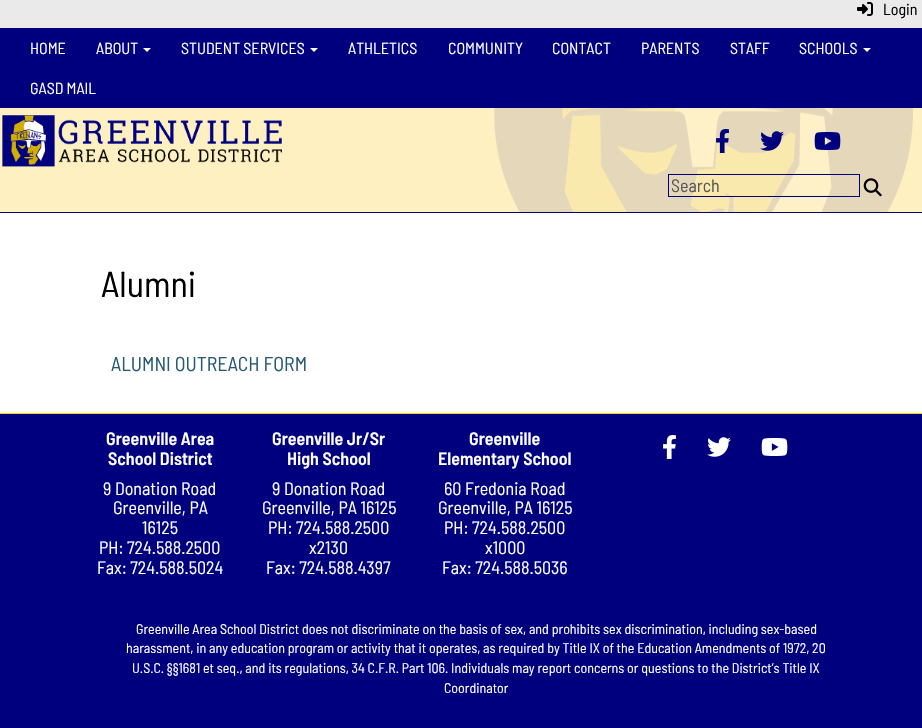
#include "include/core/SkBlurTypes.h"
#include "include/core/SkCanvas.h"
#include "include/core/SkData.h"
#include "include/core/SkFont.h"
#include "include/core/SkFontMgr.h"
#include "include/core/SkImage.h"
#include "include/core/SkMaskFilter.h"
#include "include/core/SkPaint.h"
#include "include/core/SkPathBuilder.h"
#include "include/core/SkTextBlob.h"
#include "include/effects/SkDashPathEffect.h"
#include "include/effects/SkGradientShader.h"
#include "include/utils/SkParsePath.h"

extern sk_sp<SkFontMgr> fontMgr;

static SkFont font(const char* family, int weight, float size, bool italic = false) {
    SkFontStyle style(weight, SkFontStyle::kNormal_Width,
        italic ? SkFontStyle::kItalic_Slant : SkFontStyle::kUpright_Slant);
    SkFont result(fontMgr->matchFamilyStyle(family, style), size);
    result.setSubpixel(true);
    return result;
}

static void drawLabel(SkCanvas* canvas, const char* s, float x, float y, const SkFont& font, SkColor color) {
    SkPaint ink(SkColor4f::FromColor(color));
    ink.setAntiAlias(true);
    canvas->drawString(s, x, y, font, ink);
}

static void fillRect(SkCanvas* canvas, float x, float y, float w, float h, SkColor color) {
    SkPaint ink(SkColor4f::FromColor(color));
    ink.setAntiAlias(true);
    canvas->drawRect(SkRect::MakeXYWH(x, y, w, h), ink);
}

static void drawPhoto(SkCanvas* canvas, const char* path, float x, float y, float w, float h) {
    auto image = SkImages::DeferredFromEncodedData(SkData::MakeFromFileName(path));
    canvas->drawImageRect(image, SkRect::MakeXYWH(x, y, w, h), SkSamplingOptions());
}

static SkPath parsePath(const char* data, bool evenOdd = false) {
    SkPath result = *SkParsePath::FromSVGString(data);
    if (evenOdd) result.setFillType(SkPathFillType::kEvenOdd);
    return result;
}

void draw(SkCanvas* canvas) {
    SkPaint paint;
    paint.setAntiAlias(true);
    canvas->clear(0xFFFFFFFF);
    fillRect(canvas, 0, 0, 922, 28, 0xFFEAEAEA);
    drawPhoto(canvas, "assets/img1.png", 857, 2, 16, 14);
    SkFont font1 = font("Barlow Semi Condensed", 400, 16);
    drawLabel(canvas, "Login", 883, 15, font1, 0xFF000000);
    fillRect(canvas, 0, 108, 922, 104, 0xFFFFF0C1);
    drawPhoto(canvas, "assets/img2.png", 494, 108, 419, 104);
    fillRect(canvas, 0, 28, 922, 80, 0xFF00007E);
    drawLabel(canvas, "HOME", 30, 54, font1, 0xFFFFFFFF);
    drawLabel(canvas, "ABOUT", 96, 54, font1, 0xFFFFFFFF);
    paint.setColor(0xFFFFFFFF);
    canvas->drawPath(parsePath("M143 48H151L147 52Z"), paint);
    drawLabel(canvas, "STUDENT SERVICES", 181, 54, font1, 0xFFFFFFFF);
    canvas->drawPath(parsePath("M310 48H318L314 52Z"), paint);
    drawLabel(canvas, "ATHLETICS", 348, 54, font1, 0xFFFFFFFF);
    drawLabel(canvas, "COMMUNITY", 448, 54, font1, 0xFFFFFFFF);
    drawLabel(canvas, "CONTACT", 552, 54, font1, 0xFFFFFFFF);
    drawLabel(canvas, "PARENTS", 641, 54, font1, 0xFFFFFFFF);
    drawLabel(canvas, "STAFF", 730, 54, font1, 0xFFFFFFFF);
    drawLabel(canvas, "SCHOOLS", 799, 54, font1, 0xFFFFFFFF);
    canvas->drawPath(parsePath("M863 48H871L867 52Z"), paint);
    drawLabel(canvas, "GASD MAIL", 30, 94, font1, 0xFFFFFFFF);
    drawPhoto(canvas, "assets/img3.png", 2, 115, 280, 52);
    drawPhoto(canvas, "assets/img4.png", 716, 129, 13, 24);
    drawPhoto(canvas, "assets/img5.png", 760, 131, 24, 20);
    drawPhoto(canvas, "assets/img6.png", 814, 132, 27, 18);
    paint.setStroke(true);
    paint.setStrokeWidth(1);
    paint.setColor(0xFF00007E);
    canvas->drawRect(SkRect::MakeXYWH(668.5f, 174.5f, 191, 22), paint);
    SkFont font2 = font("Barlow Semi Condensed", 400, 18);
    drawLabel(canvas, "Search", 671, 192, font2, 0xFF575757);
    drawPhoto(canvas, "assets/img7.png", 863, 178, 19, 19);
    fillRect(canvas, 0, 212, 922, 1, 0xFF00007E);
    SkFont font3 = font("Barlow Semi Condensed", 400, 36);
    drawLabel(canvas, "Alumni", 101, 297, font3, 0xFF000000);
    SkFont font4 = font("Barlow Semi Condensed", 400, 20);
    drawLabel(canvas, "ALUMNI OUTREACH FORM", 111, 371, font4, 0xFF275972);
    fillRect(canvas, 0, 414, 922, 314, 0xFF00007E);
    fillRect(canvas, 0, 413, 922, 1, 0xFFFDD806);
    SkFont font5 = font("Barlow Semi Condensed", 600, 18);
    drawLabel(canvas, "Greenville Area", 106, 445, font5, 0xFFFFFFFF);
    drawLabel(canvas, "School District", 108, 465, font5, 0xFFFFFFFF);
    drawLabel(canvas, "9 Donation Road", 103, 495, font2, 0xFFFFFFFF);
    drawLabel(canvas, "Greenville, PA", 113, 514, font2, 0xFFFFFFFF);
    drawLabel(canvas, "16125", 142, 534, font2, 0xFFFFFFFF);
    drawLabel(canvas, "PH: 724.588.2500", 99, 554, font2, 0xFFFFFFFF);
    drawLabel(canvas, "Fax: 724.588.5024", 97, 574, font2, 0xFFFFFFFF);
    drawLabel(canvas, "Greenville Jr/Sr", 272, 445, font5, 0xFFFFFFFF);
    drawLabel(canvas, "High School", 287, 465, font5, 0xFFFFFFFF);
    drawLabel(canvas, "9 Donation Road", 272, 495, font2, 0xFFFFFFFF);
    drawLabel(canvas, "Greenville, PA 16125", 262, 514, font2, 0xFFFFFFFF);
    drawLabel(canvas, "PH: 724.588.2500", 268, 534, font2, 0xFFFFFFFF);
    drawLabel(canvas, "x2130", 309, 554, font2, 0xFFFFFFFF);
    drawLabel(canvas, "Fax: 724.588.4397", 266, 574, font2, 0xFFFFFFFF);
    drawLabel(canvas, "Greenville", 469, 445, font5, 0xFFFFFFFF);
    drawLabel(canvas, "Elementary School", 438, 465, font5, 0xFFFFFFFF);
    drawLabel(canvas, "60 Fredonia Road", 444, 495, font2, 0xFFFFFFFF);
    drawLabel(canvas, "Greenville, PA 16125", 438, 514, font2, 0xFFFFFFFF);
    drawLabel(canvas, "PH: 724.588.2500", 444, 534, font2, 0xFFFFFFFF);
    drawLabel(canvas, "x1000", 485, 554, font2, 0xFFFFFFFF);
    drawLabel(canvas, "Fax: 724.588.5036", 442, 574, font2, 0xFFFFFFFF);
    drawPhoto(canvas, "assets/img8.png", 663, 435, 13, 24);
    drawPhoto(canvas, "assets/img9.png", 707, 437, 24, 20);
    drawPhoto(canvas, "assets/img10.png", 761, 438, 27, 18);
    SkFont font6 = font("Barlow Semi Condensed", 400, 14);
    drawLabel(canvas, "Greenville Area School District does not discriminate on the basis of sex, and prohibits sex discrimination, including sex-based", 136, 634, font6, 0xFFFFFFFF);
    drawLabel(canvas, "harassment, in any education program or activity that it operates, as required by Title IX of the Education Amendments of 1972, 20", 126, 653, font6, 0xFFFFFFFF);
    drawLabel(canvas, "U.S.C. §§1681 et seq., and its regulations, 34 C.F.R. Part 106. Individuals may report concerns or questions to the District’s Title IX", 132, 673, font6, 0xFFFFFFFF);
    drawLabel(canvas, "Coordinator", 444, 693, font6, 0xFFFFFFFF);
}
